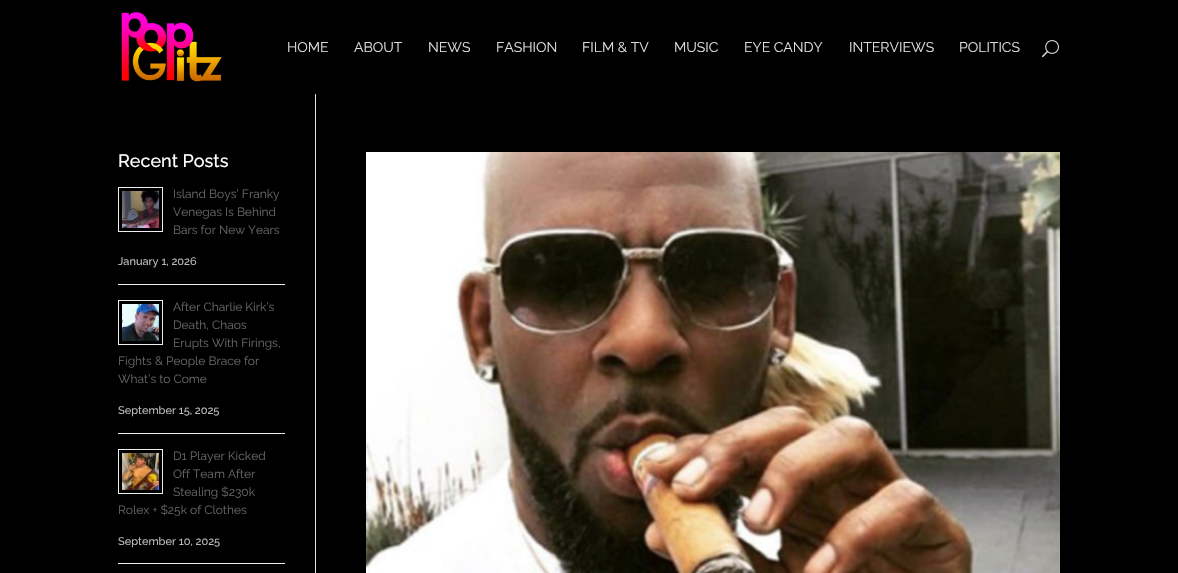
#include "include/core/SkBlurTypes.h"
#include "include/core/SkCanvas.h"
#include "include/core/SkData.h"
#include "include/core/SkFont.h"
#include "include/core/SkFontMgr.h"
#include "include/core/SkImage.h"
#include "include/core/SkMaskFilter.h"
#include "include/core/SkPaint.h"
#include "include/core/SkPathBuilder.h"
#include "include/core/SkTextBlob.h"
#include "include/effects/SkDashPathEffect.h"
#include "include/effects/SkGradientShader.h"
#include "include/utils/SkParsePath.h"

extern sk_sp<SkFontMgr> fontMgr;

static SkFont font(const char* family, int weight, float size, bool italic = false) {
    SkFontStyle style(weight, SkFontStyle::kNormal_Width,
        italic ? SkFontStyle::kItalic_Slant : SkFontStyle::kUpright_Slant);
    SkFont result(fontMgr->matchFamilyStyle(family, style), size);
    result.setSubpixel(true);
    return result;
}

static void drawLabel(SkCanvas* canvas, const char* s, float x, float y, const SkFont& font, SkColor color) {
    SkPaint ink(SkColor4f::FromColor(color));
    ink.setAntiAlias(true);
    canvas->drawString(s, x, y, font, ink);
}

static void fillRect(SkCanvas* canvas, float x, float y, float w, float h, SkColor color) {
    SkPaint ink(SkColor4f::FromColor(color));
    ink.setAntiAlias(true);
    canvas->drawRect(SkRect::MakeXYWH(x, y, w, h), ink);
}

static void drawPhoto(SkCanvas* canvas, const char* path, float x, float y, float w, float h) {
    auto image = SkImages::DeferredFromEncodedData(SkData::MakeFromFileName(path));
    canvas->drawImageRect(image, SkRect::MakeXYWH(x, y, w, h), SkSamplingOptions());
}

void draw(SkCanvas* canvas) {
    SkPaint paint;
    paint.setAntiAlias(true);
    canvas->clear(0xFF000000);
    drawPhoto(canvas, "assets/img1.png", 121, 12, 101, 70);
    SkFont font1 = font("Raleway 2", 100, 14);
    drawLabel(canvas, "HOME", 287, 52, font1, 0xFFDEDEDE);
    drawLabel(canvas, "ABOUT", 354, 52, font1, 0xFFDEDEDE);
    drawLabel(canvas, "NEWS", 428, 52, font1, 0xFFDEDEDE);
    drawLabel(canvas, "FASHION", 496, 52, font1, 0xFFDEDEDE);
    drawLabel(canvas, "FILM & TV", 582, 52, font1, 0xFFDEDEDE);
    drawLabel(canvas, "MUSIC", 674, 52, font1, 0xFFDEDEDE);
    drawLabel(canvas, "EYE CANDY", 744, 52, font1, 0xFFDEDEDE);
    drawLabel(canvas, "INTERVIEWS", 849, 52, font1, 0xFFDEDEDE);
    drawLabel(canvas, "POLITICS", 959, 52, font1, 0xFFDEDEDE);
    drawPhoto(canvas, "assets/img2.png", 1042, 40, 17, 18);
    SkFont font2 = font("Raleway", 100, 18);
    drawLabel(canvas, "Recent Posts", 118, 167, font2, 0xFFFFFFFF);
    fillRect(canvas, 118, 284, 167, 1, 0xFFEEEEEE);
    paint.setStroke(true);
    paint.setStrokeWidth(1);
    paint.setColor(0xFFEEEEEE);
    canvas->drawRect(SkRect::MakeXYWH(118.5f, 187.5f, 44, 44), paint);
    drawPhoto(canvas, "assets/img3.png", 122, 191, 37, 37);
    SkFont font3 = font("Raleway 2", 100, 12);
    drawLabel(canvas, "Island Boys’ Franky", 173, 198, font3, 0xFF666666);
    drawLabel(canvas, "Venegas Is Behind", 173, 216, font3, 0xFF666666);
    drawLabel(canvas, "Bars for New Years", 173, 234, font3, 0xFF666666);
    SkFont font4 = font("Raleway", 100, 11);
    drawLabel(canvas, "January 1, 2026", 118, 265, font4, 0xFFBBBBBB);
    fillRect(canvas, 118, 433, 167, 1, 0xFFEEEEEE);
    canvas->drawRect(SkRect::MakeXYWH(118.5f, 300.5f, 44, 44), paint);
    drawPhoto(canvas, "assets/img4.png", 122, 304, 37, 37);
    drawLabel(canvas, "After Charlie Kirk’s", 173, 311, font3, 0xFF666666);
    drawLabel(canvas, "Death, Chaos", 173, 329, font3, 0xFF666666);
    drawLabel(canvas, "Erupts With Firings,", 173, 347, font3, 0xFF666666);
    drawLabel(canvas, "Fights & People Brace for", 118, 365, font3, 0xFF666666);
    drawLabel(canvas, "What’s to Come", 118, 383, font3, 0xFF666666);
    drawLabel(canvas, "September 15, 2025", 118, 414, font4, 0xFFBBBBBB);
    fillRect(canvas, 118, 563, 167, 1, 0xFFEEEEEE);
    canvas->drawRect(SkRect::MakeXYWH(118.5f, 449.5f, 44, 44), paint);
    drawPhoto(canvas, "assets/img5.png", 122, 453, 37, 37);
    drawLabel(canvas, "D1 Player Kicked", 173, 460, font3, 0xFF666666);
    drawLabel(canvas, "Off Team After", 173, 478, font3, 0xFF666666);
    drawLabel(canvas, "Stealing $230k", 173, 496, font3, 0xFF666666);
    drawLabel(canvas, "Rolex + $25k of Clothes", 118, 514, font3, 0xFF666666);
    drawLabel(canvas, "September 10, 2025", 118, 545, font4, 0xFFBBBBBB);
    drawPhoto(canvas, "assets/img6.png", 366, 152, 694, 421);
    fillRect(canvas, 315, 94, 1, 479, 0xFFE2E2E2);
    fillRect(canvas, 315, 94, 1, 1, 0xFFCBCBCB);
}
